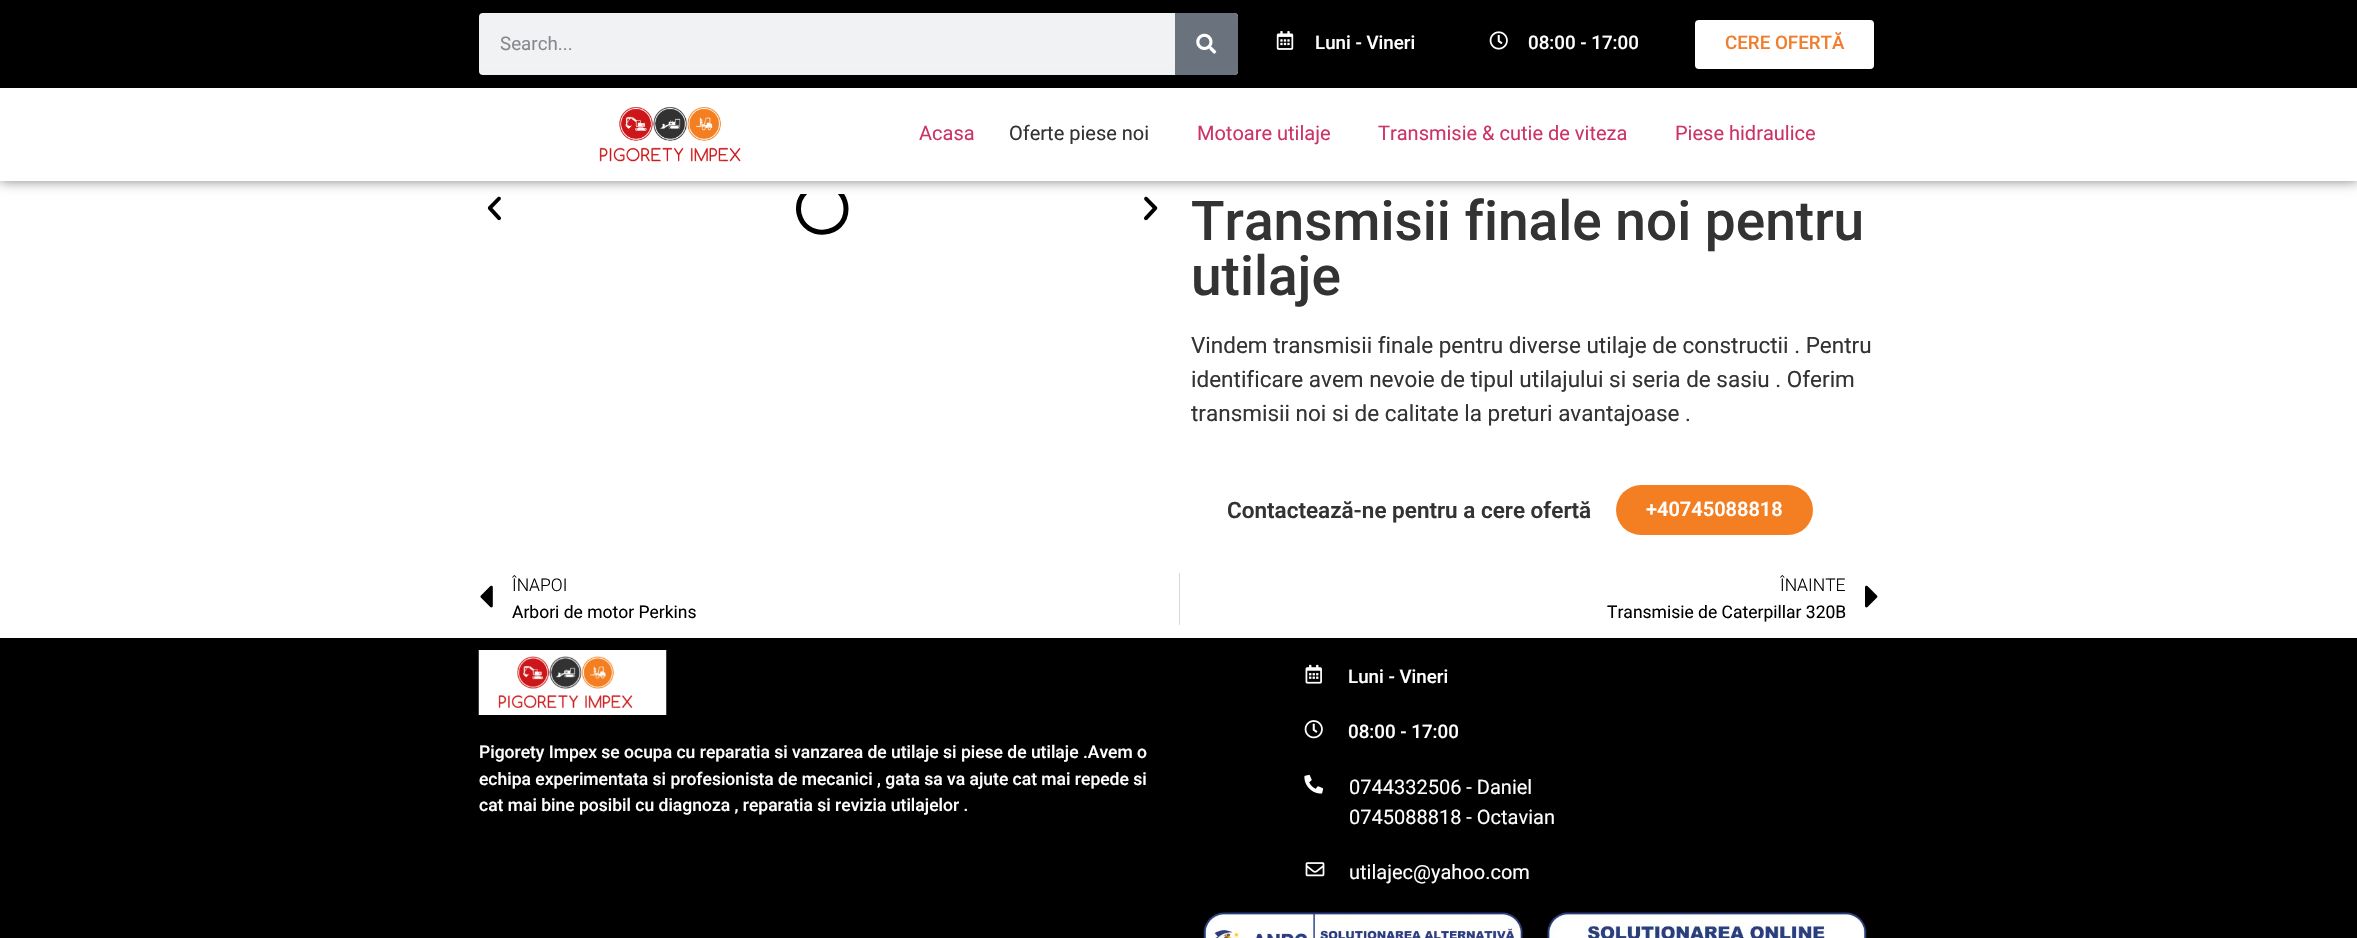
#include "include/core/SkBlurTypes.h"
#include "include/core/SkCanvas.h"
#include "include/core/SkData.h"
#include "include/core/SkFont.h"
#include "include/core/SkFontMgr.h"
#include "include/core/SkImage.h"
#include "include/core/SkMaskFilter.h"
#include "include/core/SkPaint.h"
#include "include/core/SkPathBuilder.h"
#include "include/core/SkTextBlob.h"
#include "include/effects/SkDashPathEffect.h"
#include "include/effects/SkGradientShader.h"
#include "include/utils/SkParsePath.h"

extern sk_sp<SkFontMgr> fontMgr;

static SkFont font(const char* family, int weight, float size, bool italic = false) {
    SkFontStyle style(weight, SkFontStyle::kNormal_Width,
        italic ? SkFontStyle::kItalic_Slant : SkFontStyle::kUpright_Slant);
    SkFont result(fontMgr->matchFamilyStyle(family, style), size);
    result.setSubpixel(true);
    return result;
}

static void drawLabel(SkCanvas* canvas, const char* s, float x, float y, const SkFont& font, SkColor color) {
    SkPaint ink(SkColor4f::FromColor(color));
    ink.setAntiAlias(true);
    canvas->drawString(s, x, y, font, ink);
}

static void fillRect(SkCanvas* canvas, float x, float y, float w, float h, SkColor color) {
    SkPaint ink(SkColor4f::FromColor(color));
    ink.setAntiAlias(true);
    canvas->drawRect(SkRect::MakeXYWH(x, y, w, h), ink);
}

static void fillRRect(SkCanvas* canvas, float x, float y, float w, float h, float radius, SkColor color) {
    SkPaint ink(SkColor4f::FromColor(color));
    ink.setAntiAlias(true);
    canvas->drawRoundRect(SkRect::MakeXYWH(x, y, w, h), radius, radius, ink);
}

static void drawPhoto(SkCanvas* canvas, const char* path, float x, float y, float w, float h) {
    auto image = SkImages::DeferredFromEncodedData(SkData::MakeFromFileName(path));
    canvas->drawImageRect(image, SkRect::MakeXYWH(x, y, w, h), SkSamplingOptions());
}

static SkPath parsePath(const char* data, bool evenOdd = false) {
    SkPath result = *SkParsePath::FromSVGString(data);
    if (evenOdd) result.setFillType(SkPathFillType::kEvenOdd);
    return result;
}

void draw(SkCanvas* canvas) {
    SkPaint paint;
    paint.setAntiAlias(true);
    canvas->clear(0xFFFFFFFF);
    fillRect(canvas, 0, 0, 2357, 88, 0xFF000000);
    fillRRect(canvas, 479, 13, 759, 62, 4, 0xFFF1F2F3);
    SkFont font1 = font("Roboto", 400, 18.75f);
    drawLabel(canvas, "Search...", 500, 50, font1, 0xFF868A8E);
    paint.setColor(0xFF69727D);
    canvas->drawPath(parsePath("M1175 13H1234C1236 13 1238 15 1238 17V71C1238 73 1236 75 1234 75H1175Z"), paint);
    drawPhoto(canvas, "assets/img1.png", 1196, 33, 21, 21);
    drawPhoto(canvas, "assets/img2.png", 1276, 31, 18, 19);
    SkFont font2 = font("Roboto", 500, 18.75f);
    drawLabel(canvas, "Luni - Vineri", 1315, 49, font2, 0xFFFFFFFF);
    drawPhoto(canvas, "assets/img3.png", 1489, 31, 19, 19);
    drawLabel(canvas, "08:00 - 17:00", 1528, 49, font2, 0xFFFFFFFF);
    fillRRect(canvas, 1695, 20, 179, 49, 4, 0xFFFFFFFF);
    drawLabel(canvas, "CERE OFERTĂ", 1725, 49, font2, 0xFFF17D2E);
    drawPhoto(canvas, "assets/img5.png", 487, 196, 14, 25);
    canvas->save();
    canvas->clipRect(SkRect::MakeXYWH(516, 194, 613, 67));
    paint.setStroke(true);
    paint.setStrokeWidth(5);
    paint.setColor(0xFF000000);
    canvas->drawPath(parsePath("M839.5 192C843.5 196.5 846 202.5 846 209C846 237 805 241 799 213.5C797.5 205.5 800 197.5 805.5 192"), paint);
    canvas->restore();
    drawPhoto(canvas, "assets/img6.png", 1144, 196, 14, 25);
    canvas->save();
    canvas->clipPath(parsePath("M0 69H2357V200H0ZM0 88H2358V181H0Z", true), true);
    paint.setStroke(false);
    paint.setColor(0x80000000);
    paint.setMaskFilter(SkMaskFilter::MakeBlur(kNormal_SkBlurStyle, 6));
    canvas->drawRect(SkRect::MakeXYWH(0, 88, 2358, 93), paint);
    paint.setMaskFilter(nullptr);
    canvas->restore();
    drawPhoto(canvas, "assets/img4.png", 599, 107, 142, 55);
    SkFont font3 = font("Roboto", 400, 20);
    drawLabel(canvas, "Acasa", 919, 140, font3, 0xFFCC3366);
    drawLabel(canvas, "Oferte piese noi", 1009, 140, font3, 0xFF333333);
    drawLabel(canvas, "Motoare utilaje", 1197, 140, font3, 0xFFCC3366);
    drawLabel(canvas, "Transmisie & cutie de viteza", 1378, 140, font3, 0xFFCC3366);
    drawLabel(canvas, "Piese hidraulice", 1675, 140, font3, 0xFFCC3366);
    SkFont font4 = font("Roboto", 500, 55);
    drawLabel(canvas, "Transmisii finale noi pentru", 1191, 240, font4, 0xFF333333);
    drawLabel(canvas, "utilaje", 1191, 295, font4, 0xFF333333);
    SkFont font5 = font("Roboto", 400, 22.5f);
    drawLabel(canvas, "Vindem transmisii finale pentru diverse utilaje de constructii . Pentru", 1191, 353, font5, 0xFF333333);
    drawLabel(canvas, "identificare avem nevoie de tipul utilajului si seria de sasiu . Oferim", 1191, 387, font5, 0xFF333333);
    drawLabel(canvas, "transmisii noi si de calitate la preturi avantajoase .", 1191, 421, font5, 0xFF333333);
    SkFont font6 = font("Roboto", 600, 22.5f);
    drawLabel(canvas, "Contactează-ne pentru a cere ofertă", 1227, 518, font6, 0xFF333333);
    fillRRect(canvas, 1616, 485, 197, 50, 25, 0xFFF47F22);
    SkFont font7 = font("Roboto", 600, 20);
    drawLabel(canvas, "+40745088818", 1646, 516, font7, 0xFFFFFFFF);
    drawPhoto(canvas, "assets/img7.png", 480, 585, 13, 23);
    SkFont font8 = font("Roboto", 300, 17.5f);
    drawLabel(canvas, "ÎNAPOI", 512, 591, font8, 0xFF000000);
    SkFont font9 = font("Roboto", 400, 17.5f);
    drawLabel(canvas, "Arbori de motor Perkins", 512, 618, font9, 0xFF000000);
    fillRect(canvas, 1179, 573, 1, 52, 0xFFD5D8DC);
    drawLabel(canvas, "ÎNAINTE", 1780, 591, font8, 0xFF000000);
    drawLabel(canvas, "Transmisie de Caterpillar 320B", 1607, 618, font9, 0xFF000000);
    drawPhoto(canvas, "assets/img8.png", 1865, 585, 13, 23);
    fillRect(canvas, 0, 638, 2357, 300, 0xFF000000);
    drawPhoto(canvas, "assets/img9.png", 478, 650, 189, 65);
    SkFont font10 = font("Roboto", 500, 17.5f);
    drawLabel(canvas, "Pigorety Impex se ocupa cu reparatia si vanzarea de utilaje si piese de utilaje .Avem o", 479, 758, font10, 0xFFFFFFFF);
    drawLabel(canvas, "echipa experimentata si profesionista de mecanici , gata sa va ajute cat mai repede si", 479, 785, font10, 0xFFFFFFFF);
    drawLabel(canvas, "cat mai bine posibil cu diagnoza , reparatia si revizia utilajelor .", 479, 811, font10, 0xFFFFFFFF);
    drawPhoto(canvas, "assets/img10.png", 1305, 664, 17, 20);
    drawLabel(canvas, "Luni - Vineri", 1348, 683, font2, 0xFFFFFFFF);
    drawPhoto(canvas, "assets/img11.png", 1304, 720, 19, 19);
    drawLabel(canvas, "08:00 - 17:00", 1348, 738, font2, 0xFFFFFFFF);
    drawPhoto(canvas, "assets/img12.png", 1304, 774, 20, 20);
    drawLabel(canvas, "0744332506 - Daniel", 1349, 794, font3, 0xFFFFFFFF);
    drawLabel(canvas, "0745088818 - Octavian", 1349, 824, font3, 0xFFFFFFFF);
    drawPhoto(canvas, "assets/img13.png", 1305, 862, 20, 15);
    drawLabel(canvas, "utilajec@yahoo.com", 1349, 879, font3, 0xFFFFFFFF);
    drawPhoto(canvas, "assets/img14.png", 1203, 912, 320, 26);
    drawPhoto(canvas, "assets/img15.png", 1547, 912, 320, 26);
}
